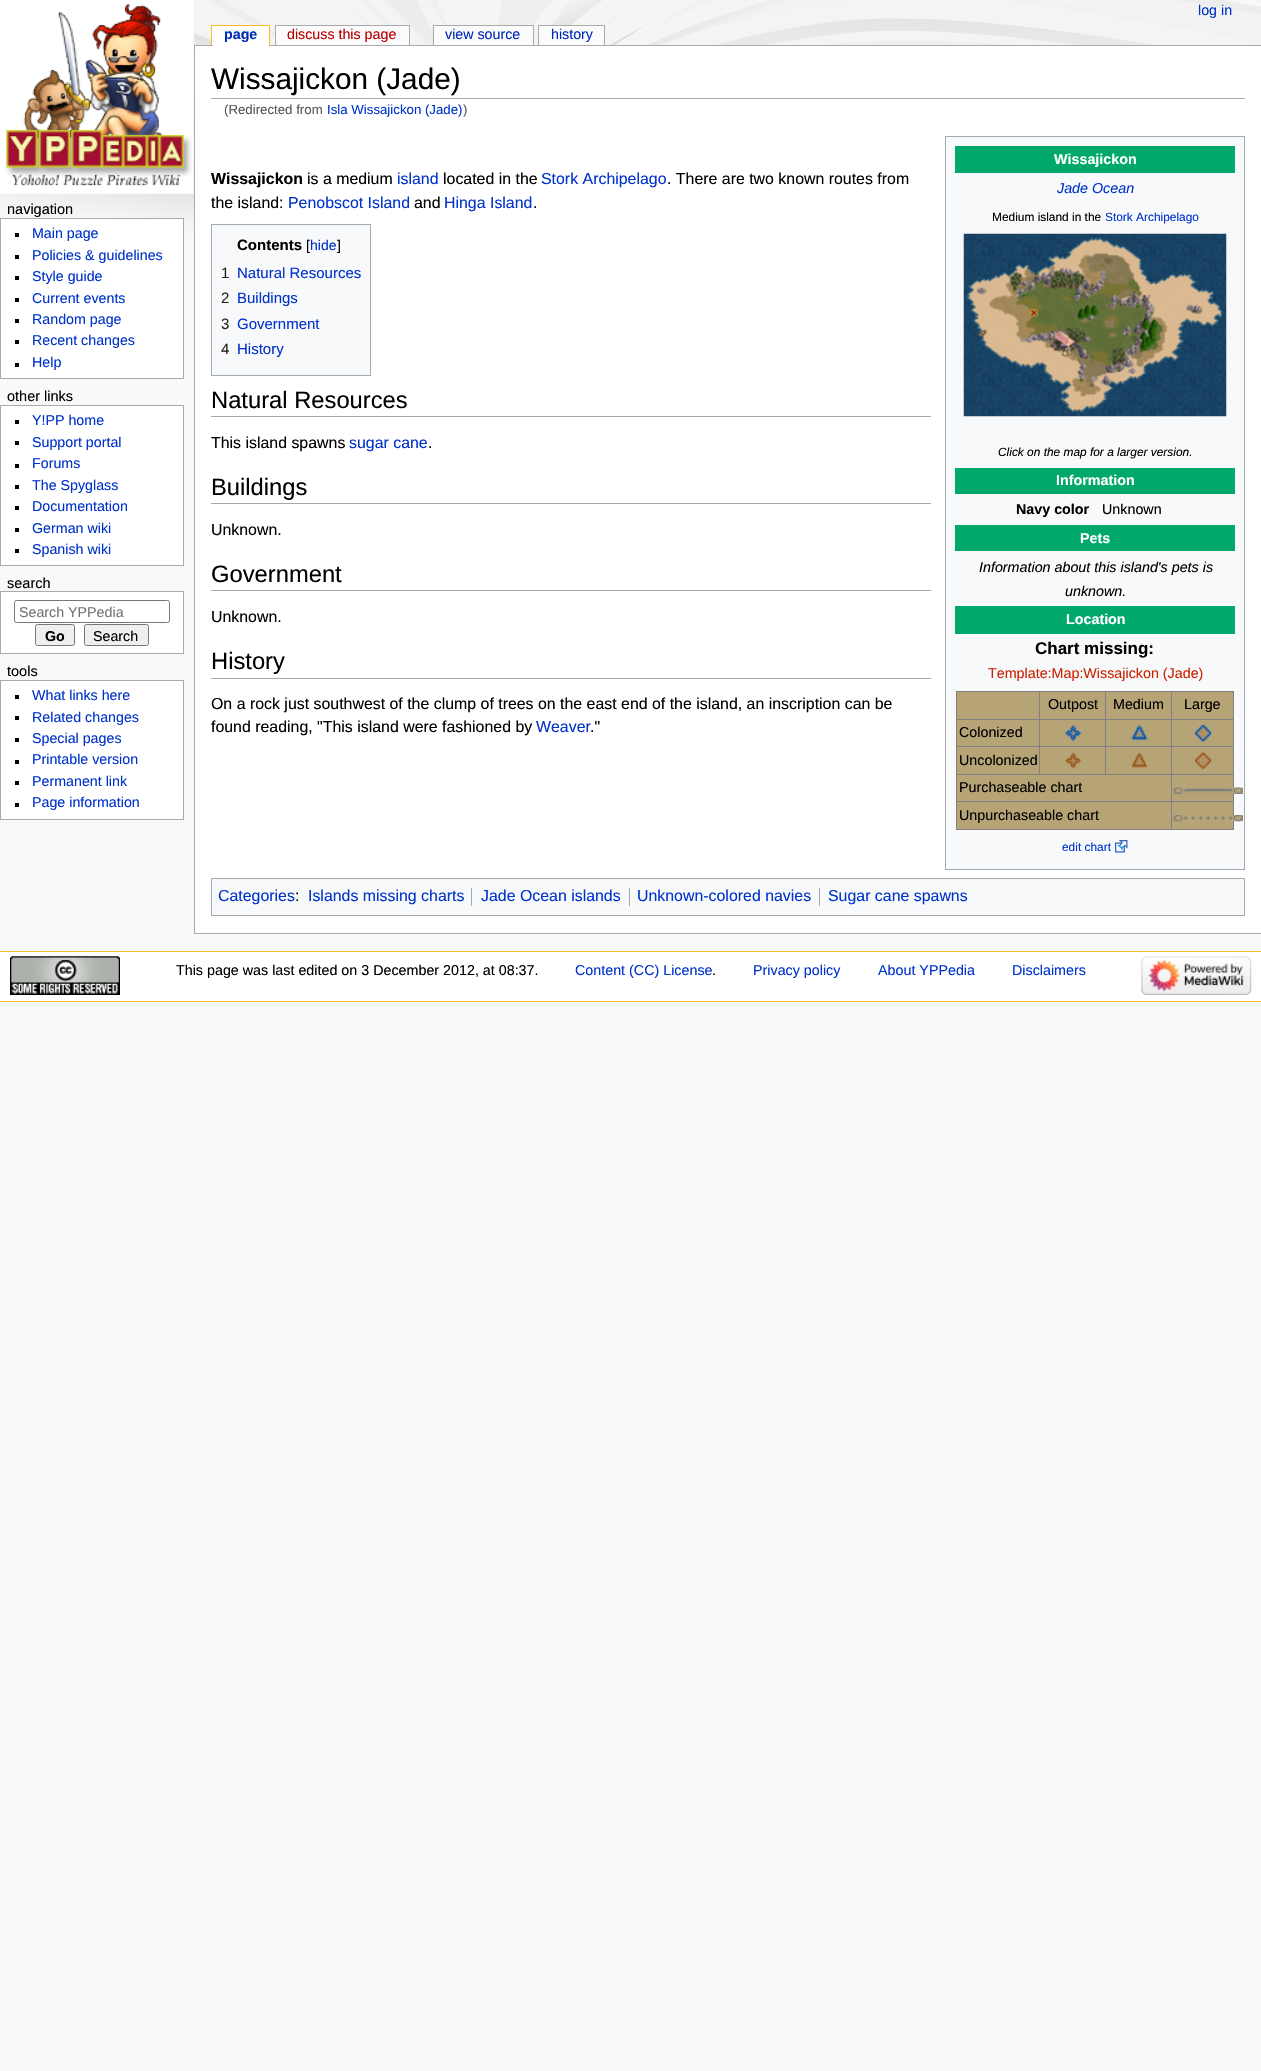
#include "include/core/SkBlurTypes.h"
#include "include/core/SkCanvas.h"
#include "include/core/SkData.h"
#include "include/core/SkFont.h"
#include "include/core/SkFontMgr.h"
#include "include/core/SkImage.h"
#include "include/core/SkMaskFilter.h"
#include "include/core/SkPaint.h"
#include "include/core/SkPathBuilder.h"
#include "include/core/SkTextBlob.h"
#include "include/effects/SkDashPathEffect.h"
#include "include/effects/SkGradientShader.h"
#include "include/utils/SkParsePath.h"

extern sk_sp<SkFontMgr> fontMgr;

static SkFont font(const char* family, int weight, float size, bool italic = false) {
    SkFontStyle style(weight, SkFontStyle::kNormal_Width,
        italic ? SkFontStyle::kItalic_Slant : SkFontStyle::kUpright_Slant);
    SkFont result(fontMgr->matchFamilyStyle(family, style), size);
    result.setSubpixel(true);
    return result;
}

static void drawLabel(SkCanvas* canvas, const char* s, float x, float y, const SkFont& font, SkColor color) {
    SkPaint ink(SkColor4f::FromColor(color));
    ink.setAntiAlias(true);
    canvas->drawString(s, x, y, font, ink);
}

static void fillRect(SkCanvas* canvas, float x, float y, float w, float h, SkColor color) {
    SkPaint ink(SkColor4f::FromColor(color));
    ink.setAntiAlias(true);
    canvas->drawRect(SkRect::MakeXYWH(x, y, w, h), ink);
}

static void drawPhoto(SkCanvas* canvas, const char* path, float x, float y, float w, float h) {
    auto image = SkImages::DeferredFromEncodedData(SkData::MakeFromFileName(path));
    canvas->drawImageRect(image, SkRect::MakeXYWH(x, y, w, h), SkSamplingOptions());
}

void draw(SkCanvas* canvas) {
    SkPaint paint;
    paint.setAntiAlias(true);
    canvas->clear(0xFFF9F9F9);
    drawPhoto(canvas, "assets/img1.png", 0, 0, 1261, 263);
    drawPhoto(canvas, "assets/img2.png", 0, 0, 194, 194);
    SkFont font1 = font("Liberation Sans", 400, 14.25f);
    drawLabel(canvas, "log in", 1198, 15, font1, 0xFF0033CC);
    fillRect(canvas, 194, 45, 1067, 1, 0xFFAAAAAA);
    fillRect(canvas, 213, 26, 56, 20, 0xFFFFFFFF);
    SkFont font2 = font("Liberation Sans", 700, 14.25f);
    drawLabel(canvas, "page", 224, 39, font2, 0xFF002BB8);
    fillRect(canvas, 212, 26, 1, 19, 0xFFFFFFFF);
    fillRect(canvas, 211, 25, 59, 1, 0xFFFABD23);
    fillRect(canvas, 269, 25, 1, 20, 0xFFFABD23);
    fillRect(canvas, 211, 25, 1, 20, 0xFFFABD23);
    fillRect(canvas, 276, 26, 133, 19, 0xFFFBFBFB);
    drawLabel(canvas, "discuss this page", 287, 39, font1, 0xFFBA0000);
    fillRect(canvas, 275, 25, 135, 1, 0xFFAAAAAA);
    fillRect(canvas, 409, 25, 1, 20, 0xFFAAAAAA);
    fillRect(canvas, 275, 25, 1, 20, 0xFFAAAAAA);
    fillRect(canvas, 434, 26, 99, 19, 0xFFFBFBFB);
    drawLabel(canvas, "view source", 445, 39, font1, 0xFF002BB8);
    fillRect(canvas, 433, 25, 101, 1, 0xFFAAAAAA);
    fillRect(canvas, 533, 25, 1, 20, 0xFFAAAAAA);
    fillRect(canvas, 433, 25, 1, 20, 0xFFAAAAAA);
    fillRect(canvas, 539, 26, 65, 19, 0xFFFBFBFB);
    drawLabel(canvas, "history", 551, 39, font1, 0xFF002BB8);
    fillRect(canvas, 538, 25, 67, 1, 0xFFAAAAAA);
    fillRect(canvas, 604, 25, 1, 20, 0xFFAAAAAA);
    fillRect(canvas, 538, 25, 1, 20, 0xFFAAAAAA);
    SkFont font3 = font("Liberation Sans", 400, 14.5f);
    drawLabel(canvas, "navigation", 7, 214, font3, 0xFF000000);
    paint.setColor(0xFFFFFFFF);
    canvas->drawRect(SkRect::MakeXYWH(0.5f, 218.5f, 183, 160), paint);
    paint.setStroke(true);
    paint.setStrokeWidth(1);
    paint.setColor(0xFFAAAAAA);
    canvas->drawRect(SkRect::MakeXYWH(0.5f, 218.5f, 183, 160), paint);
    fillRect(canvas, 15, 233, 4, 4, 0xFF000000);
    drawLabel(canvas, "Main page", 32, 238, font1, 0xFF0033CC);
    fillRect(canvas, 15, 255, 4, 4, 0xFF000000);
    drawLabel(canvas, "Policies & guidelines", 32, 260, font1, 0xFF0033CC);
    fillRect(canvas, 15, 276, 4, 4, 0xFF000000);
    drawLabel(canvas, "Style guide", 32, 281, font1, 0xFF0033CC);
    fillRect(canvas, 15, 298, 4, 4, 0xFF000000);
    drawLabel(canvas, "Current events", 32, 303, font1, 0xFF0033CC);
    fillRect(canvas, 15, 319, 4, 4, 0xFF000000);
    drawLabel(canvas, "Random page", 32, 324, font1, 0xFF0033CC);
    fillRect(canvas, 15, 340, 4, 4, 0xFF000000);
    drawLabel(canvas, "Recent changes", 32, 345, font1, 0xFF0033CC);
    fillRect(canvas, 15, 363, 4, 4, 0xFF000000);
    drawLabel(canvas, "Help", 32, 367, font1, 0xFF0033CC);
    drawLabel(canvas, "other links", 7, 401, font3, 0xFF000000);
    paint.setStroke(false);
    paint.setColor(0xFFFFFFFF);
    canvas->drawRect(SkRect::MakeXYWH(0.5f, 405.5f, 183, 160), paint);
    paint.setStroke(true);
    paint.setColor(0xFFAAAAAA);
    canvas->drawRect(SkRect::MakeXYWH(0.5f, 405.5f, 183, 160), paint);
    fillRect(canvas, 15, 420, 4, 4, 0xFF000000);
    drawLabel(canvas, "Y!PP home", 32, 425, font1, 0xFF0033CC);
    fillRect(canvas, 15, 441, 4, 4, 0xFF000000);
    drawLabel(canvas, "Support portal", 32, 447, font1, 0xFF0033CC);
    fillRect(canvas, 15, 464, 4, 4, 0xFF000000);
    drawLabel(canvas, "Forums", 32, 468, font1, 0xFF0033CC);
    fillRect(canvas, 15, 485, 4, 4, 0xFF000000);
    drawLabel(canvas, "The Spyglass", 32, 490, font1, 0xFF0033CC);
    fillRect(canvas, 15, 506, 4, 4, 0xFF000000);
    drawLabel(canvas, "Documentation", 32, 511, font1, 0xFF0033CC);
    fillRect(canvas, 15, 528, 4, 4, 0xFF000000);
    drawLabel(canvas, "German wiki", 32, 533, font1, 0xFF0033CC);
    fillRect(canvas, 15, 549, 4, 4, 0xFF000000);
    drawLabel(canvas, "Spanish wiki", 32, 554, font1, 0xFF0033CC);
    drawLabel(canvas, "search", 7, 588, font3, 0xFF000000);
    paint.setStroke(false);
    paint.setColor(0xFFFFFFFF);
    canvas->drawRect(SkRect::MakeXYWH(0.5f, 591.5f, 183, 62), paint);
    paint.setStroke(true);
    paint.setColor(0xFFAAAAAA);
    canvas->drawRect(SkRect::MakeXYWH(0.5f, 591.5f, 183, 62), paint);
    paint.setColor(0xFF767676);
    canvas->drawRoundRect(SkRect::MakeXYWH(14.5f, 600.5f, 155, 22), 2, 2, paint);
    drawLabel(canvas, "Search YPPedia", 19, 617, font1, 0xFF757575);
    paint.setStroke(false);
    paint.setColor(0xFFEFEFEF);
    canvas->drawRoundRect(SkRect::MakeXYWH(35.5f, 624.5f, 39, 21), 2, 2, paint);
    paint.setStroke(true);
    paint.setColor(0xFF767676);
    canvas->drawRoundRect(SkRect::MakeXYWH(35.5f, 624.5f, 39, 21), 2, 2, paint);
    drawLabel(canvas, "Go", 45, 641, font2, 0xFF000000);
    paint.setStroke(false);
    paint.setColor(0xFFEFEFEF);
    canvas->drawRoundRect(SkRect::MakeXYWH(84.5f, 624.5f, 64, 21), 2, 2, paint);
    paint.setStroke(true);
    paint.setColor(0xFF767676);
    canvas->drawRoundRect(SkRect::MakeXYWH(84.5f, 624.5f, 64, 21), 2, 2, paint);
    drawLabel(canvas, "Search", 93, 641, font1, 0xFF000000);
    drawLabel(canvas, "tools", 7, 676, font3, 0xFF000000);
    paint.setStroke(false);
    paint.setColor(0xFFFFFFFF);
    canvas->drawRect(SkRect::MakeXYWH(0.5f, 680.5f, 183, 139), paint);
    paint.setStroke(true);
    paint.setColor(0xFFAAAAAA);
    canvas->drawRect(SkRect::MakeXYWH(0.5f, 680.5f, 183, 139), paint);
    fillRect(canvas, 15, 695, 4, 4, 0xFF000000);
    drawLabel(canvas, "What links here", 32, 700, font1, 0xFF0033CC);
    fillRect(canvas, 15, 716, 4, 4, 0xFF000000);
    drawLabel(canvas, "Related changes", 32, 722, font1, 0xFF0033CC);
    fillRect(canvas, 15, 738, 4, 4, 0xFF000000);
    drawLabel(canvas, "Special pages", 32, 743, font1, 0xFF0033CC);
    fillRect(canvas, 15, 760, 4, 4, 0xFF000000);
    drawLabel(canvas, "Printable version", 32, 764, font1, 0xFF0033CC);
    fillRect(canvas, 15, 781, 4, 4, 0xFF000000);
    drawLabel(canvas, "Permanent link", 32, 786, font1, 0xFF0033CC);
    fillRect(canvas, 15, 803, 4, 4, 0xFF000000);
    drawLabel(canvas, "Page information", 32, 807, font1, 0xFF0033CC);
    fillRect(canvas, 195, 46, 1066, 887, 0xFFFFFFFF);
    fillRect(canvas, 194, 933, 1067, 1, 0xFFAAAAAA);
    fillRect(canvas, 194, 45, 1, 889, 0xFFAAAAAA);
    fillRect(canvas, 211, 98, 1034, 1, 0xFFA2A9B1);
    SkFont font4 = font("Liberation Sans", 400, 29.75f);
    drawLabel(canvas, "Wissajickon (Jade)", 211, 89, font4, 0xFF000000);
    SkFont font5 = font("Liberation Sans", 400, 13.25f);
    drawLabel(canvas, "(Redirected from", 224, 114, font5, 0xFF54595D);
    drawLabel(canvas, "Isla Wissajickon (Jade)", 327, 114, font5, 0xFF0033CC);
    drawLabel(canvas, ")", 463, 114, font5, 0xFF54595D);
    SkFont font6 = font("Liberation Sans", 700, 15.9f);
    drawLabel(canvas, "Wissajickon", 211, 184, font6, 0xFF000000);
    SkFont font7 = font("Liberation Sans", 400, 15.9f);
    drawLabel(canvas, "is a medium", 307, 184, font7, 0xFF000000);
    drawLabel(canvas, "island", 397, 184, font7, 0xFF0033CC);
    drawLabel(canvas, "located in the", 443, 184, font7, 0xFF000000);
    drawLabel(canvas, "Stork Archipelago", 541, 184, font7, 0xFF0033CC);
    drawLabel(canvas, ". There are two known routes from", 667, 184, font7, 0xFF000000);
    drawLabel(canvas, "the island:", 211, 208, font7, 0xFF000000);
    drawLabel(canvas, "Penobscot Island", 288, 208, font7, 0xFF0033CC);
    drawLabel(canvas, "and", 414, 208, font7, 0xFF000000);
    drawLabel(canvas, "Hinga Island", 444, 208, font7, 0xFF0033CC);
    drawLabel(canvas, ".", 533, 208, font7, 0xFF000000);
    paint.setStroke(false);
    paint.setColor(0xFFF8F9FA);
    canvas->drawRect(SkRect::MakeXYWH(945.5f, 136.5f, 299, 733), paint);
    paint.setStroke(true);
    paint.setColor(0xFFA2A9B1);
    canvas->drawRect(SkRect::MakeXYWH(945.5f, 136.5f, 299, 733), paint);
    fillRect(canvas, 955, 146, 280, 27, 0xFF00A86B);
    SkFont font8 = font("Liberation Sans", 700, 14.3f);
    drawLabel(canvas, "Wissajickon", 1054, 164, font8, 0xFFFFFFFF);
    SkFont font9 = font("Liberation Sans", 400, 14.3f, true);
    drawLabel(canvas, "Jade Ocean", 1057, 193, font9, 0xFF0033CC);
    SkFont font10 = font("Liberation Sans", 400, 11.9f);
    drawLabel(canvas, "Medium island in the", 992, 221, font10, 0xFF000000);
    drawLabel(canvas, "Stork Archipelago", 1105, 221, font10, 0xFF0033CC);
    drawPhoto(canvas, "assets/img3.png", 963, 233, 264, 184);
    SkFont font11 = font("Liberation Sans", 400, 11.9f, true);
    drawLabel(canvas, "Click on the map for a larger version.", 998, 456, font11, 0xFF000000);
    fillRect(canvas, 955, 468, 280, 26, 0xFF00A86B);
    drawLabel(canvas, "Information", 1056, 485, font8, 0xFFFFFFFF);
    drawLabel(canvas, "Navy color", 1016, 514, font8, 0xFF000000);
    SkFont font12 = font("Liberation Sans", 400, 14.3f);
    drawLabel(canvas, "Unknown", 1102, 514, font12, 0xFF000000);
    fillRect(canvas, 955, 525, 280, 26, 0xFF00A86B);
    drawLabel(canvas, "Pets", 1080, 543, font8, 0xFFFFFFFF);
    drawLabel(canvas, "Information about this island's pets is", 979, 572, font9, 0xFF000000);
    drawLabel(canvas, "unknown.", 1065, 596, font9, 0xFF000000);
    fillRect(canvas, 955, 606, 280, 28, 0xFF00A86B);
    drawLabel(canvas, "Location", 1066, 624, font8, 0xFFFFFFFF);
    SkFont font13 = font("Liberation Sans", 700, 17);
    drawLabel(canvas, "Chart missing:", 1035, 654, font13, 0xFF000000);
    drawLabel(canvas, "Template:Map:Wissajickon (Jade)", 988, 678, font12, 0xFFCC2200);
    fillRect(canvas, 957, 692, 276, 137, 0xFFB6A476);
    fillRect(canvas, 956, 691, 278, 1, 0xFF808080);
    fillRect(canvas, 1233, 691, 1, 139, 0xFF808080);
    fillRect(canvas, 956, 829, 278, 1, 0xFF808080);
    fillRect(canvas, 956, 691, 1, 139, 0xFF808080);
    fillRect(canvas, 1171, 719, 63, 1, 0xFF808080);
    fillRect(canvas, 1171, 746, 63, 1, 0xFF808080);
    fillRect(canvas, 1171, 774, 63, 1, 0xFF808080);
    fillRect(canvas, 1171, 801, 63, 1, 0xFF808080);
    fillRect(canvas, 1171, 801, 1, 29, 0xFF808080);
    fillRect(canvas, 956, 801, 217, 1, 0xFF808080);
    fillRect(canvas, 1171, 774, 1, 29, 0xFF808080);
    fillRect(canvas, 956, 774, 217, 1, 0xFF808080);
    fillRect(canvas, 1171, 746, 1, 29, 0xFF808080);
    fillRect(canvas, 1105, 746, 68, 1, 0xFF808080);
    fillRect(canvas, 1171, 719, 1, 29, 0xFF808080);
    fillRect(canvas, 1105, 719, 68, 1, 0xFF808080);
    fillRect(canvas, 1105, 746, 1, 29, 0xFF808080);
    fillRect(canvas, 1039, 746, 67, 1, 0xFF808080);
    fillRect(canvas, 1105, 719, 1, 29, 0xFF808080);
    fillRect(canvas, 1039, 719, 67, 1, 0xFF808080);
    fillRect(canvas, 1039, 746, 1, 29, 0xFF808080);
    fillRect(canvas, 956, 746, 84, 1, 0xFF808080);
    fillRect(canvas, 1039, 719, 1, 29, 0xFF808080);
    fillRect(canvas, 956, 719, 84, 1, 0xFF808080);
    fillRect(canvas, 1039, 691, 1, 29, 0xFF808080);
    drawLabel(canvas, "Outpost", 1048, 709, font12, 0xFF000000);
    fillRect(canvas, 1105, 691, 1, 29, 0xFF808080);
    drawLabel(canvas, "Medium", 1113, 709, font12, 0xFF000000);
    fillRect(canvas, 1171, 691, 1, 29, 0xFF808080);
    drawLabel(canvas, "Large", 1184, 709, font12, 0xFF000000);
    drawLabel(canvas, "Colonized", 959, 737, font12, 0xFF000000);
    drawPhoto(canvas, "assets/img4.png", 1065, 725, 17, 17);
    drawPhoto(canvas, "assets/img5.png", 1131, 725, 17, 16);
    drawPhoto(canvas, "assets/img6.png", 1195, 725, 17, 17);
    drawLabel(canvas, "Uncolonized", 959, 765, font12, 0xFF000000);
    drawPhoto(canvas, "assets/img7.png", 1065, 752, 17, 17);
    drawPhoto(canvas, "assets/img8.png", 1131, 752, 17, 16);
    drawPhoto(canvas, "assets/img9.png", 1195, 752, 17, 17);
    drawLabel(canvas, "Purchaseable chart", 959, 792, font12, 0xFF000000);
    fillRect(canvas, 1174, 788, 69, 6, 0xFF808080);
    drawPhoto(canvas, "assets/img10.png", 1173, 787, 70, 7);
    drawLabel(canvas, "Unpurchaseable chart", 959, 820, font12, 0xFF000000);
    fillRect(canvas, 1183, 815, 60, 6, 0xFF808080);
    drawPhoto(canvas, "assets/img11.png", 1173, 815, 70, 7);
    drawLabel(canvas, "edit chart", 1062, 851, font10, 0xFF0033CC);
    drawPhoto(canvas, "assets/img12.png", 1115, 840, 13, 13);
    paint.setStroke(false);
    paint.setColor(0xFFF8F9FA);
    canvas->drawRect(SkRect::MakeXYWH(211.5f, 224.5f, 159, 151), paint);
    paint.setStroke(true);
    paint.setColor(0xFFA2A9B1);
    canvas->drawRect(SkRect::MakeXYWH(211.5f, 224.5f, 159, 151), paint);
    SkFont font14 = font("Liberation Sans", 700, 15);
    drawLabel(canvas, "Contents", 237, 250, font14, 0xFF000000);
    SkFont font15 = font("Liberation Sans", 400, 14);
    drawLabel(canvas, "[", 306, 250, font15, 0xFF000000);
    drawLabel(canvas, "hide", 310, 250, font15, 0xFF0033CC);
    drawLabel(canvas, "]", 337, 250, font15, 0xFF000000);
    SkFont font16 = font("Liberation Sans", 400, 15);
    drawLabel(canvas, "1", 221, 278, font16, 0xFF222222);
    drawLabel(canvas, "Natural Resources", 237, 278, font16, 0xFF0033CC);
    drawLabel(canvas, "2", 221, 303, font16, 0xFF222222);
    drawLabel(canvas, "Buildings", 237, 303, font16, 0xFF0033CC);
    drawLabel(canvas, "3", 221, 329, font16, 0xFF222222);
    drawLabel(canvas, "Government", 237, 329, font16, 0xFF0033CC);
    drawLabel(canvas, "4", 221, 354, font16, 0xFF222222);
    drawLabel(canvas, "History", 237, 354, font16, 0xFF0033CC);
    fillRect(canvas, 211, 416, 720, 1, 0xFFA2A9B1);
    SkFont font17 = font("Liberation Sans", 400, 23.75f);
    drawLabel(canvas, "Natural Resources", 211, 408, font17, 0xFF000000);
    drawLabel(canvas, "This island spawns", 211, 448, font7, 0xFF000000);
    drawLabel(canvas, "sugar cane", 349, 448, font7, 0xFF0033CC);
    drawLabel(canvas, ".", 428, 448, font7, 0xFF000000);
    fillRect(canvas, 211, 503, 720, 1, 0xFFA2A9B1);
    drawLabel(canvas, "Buildings", 211, 495, font17, 0xFF000000);
    drawLabel(canvas, "Unknown.", 211, 535, font7, 0xFF000000);
    fillRect(canvas, 211, 590, 720, 1, 0xFFA2A9B1);
    drawLabel(canvas, "Government", 211, 582, font17, 0xFF000000);
    drawLabel(canvas, "Unknown.", 211, 622, font7, 0xFF000000);
    fillRect(canvas, 211, 678, 720, 1, 0xFFA2A9B1);
    drawLabel(canvas, "History", 211, 669, font17, 0xFF000000);
    drawLabel(canvas, "On a rock just southwest of the clump of trees on the east end of the island, an inscription can be", 211, 709, font7, 0xFF000000);
    drawLabel(canvas, "found reading, \"This island were fashioned by", 211, 732, font7, 0xFF000000);
    drawLabel(canvas, "Weaver", 536, 732, font7, 0xFF0033CC);
    drawLabel(canvas, ".\"", 590, 732, font7, 0xFF000000);
    paint.setStroke(false);
    paint.setColor(0xFFF8F9FA);
    canvas->drawRect(SkRect::MakeXYWH(211.5f, 878.5f, 1033, 37), paint);
    paint.setStroke(true);
    paint.setColor(0xFFA2A9B1);
    canvas->drawRect(SkRect::MakeXYWH(211.5f, 878.5f, 1033, 37), paint);
    drawLabel(canvas, "Categories", 218, 901, font7, 0xFF0033CC);
    drawLabel(canvas, ":", 295, 901, font7, 0xFF000000);
    drawLabel(canvas, "Islands missing charts", 308, 901, font7, 0xFF0033CC);
    fillRect(canvas, 471, 888, 1, 18, 0xFFA2A9B1);
    drawLabel(canvas, "Jade Ocean islands", 481, 901, font7, 0xFF0033CC);
    fillRect(canvas, 629, 888, 1, 18, 0xFFA2A9B1);
    drawLabel(canvas, "Unknown-colored navies", 637, 901, font7, 0xFF0033CC);
    fillRect(canvas, 819, 888, 1, 18, 0xFFA2A9B1);
    drawLabel(canvas, "Sugar cane spawns", 828, 901, font7, 0xFF0033CC);
    fillRect(canvas, 0, 952, 1261, 51, 0xFFFFFFFF);
    fillRect(canvas, 0, 951, 1261, 1, 0xFFFABD23);
    fillRect(canvas, 0, 1001, 1261, 1, 0xFFFABD23);
    drawPhoto(canvas, "assets/img13.png", 10, 956, 110, 39);
    drawLabel(canvas, "This page was last edited on 3 December 2012, at 08:37.", 176, 975, font12, 0xFF000000);
    drawLabel(canvas, "Content (CC) License", 575, 975, font12, 0xFF0033CC);
    drawLabel(canvas, ".", 712, 975, font12, 0xFF000000);
    drawLabel(canvas, "Privacy policy", 753, 975, font12, 0xFF0033CC);
    drawLabel(canvas, "About YPPedia", 878, 975, font12, 0xFF0033CC);
    drawLabel(canvas, "Disclaimers", 1012, 975, font12, 0xFF0033CC);
    drawPhoto(canvas, "assets/img14.png", 1141, 956, 111, 39);
}
